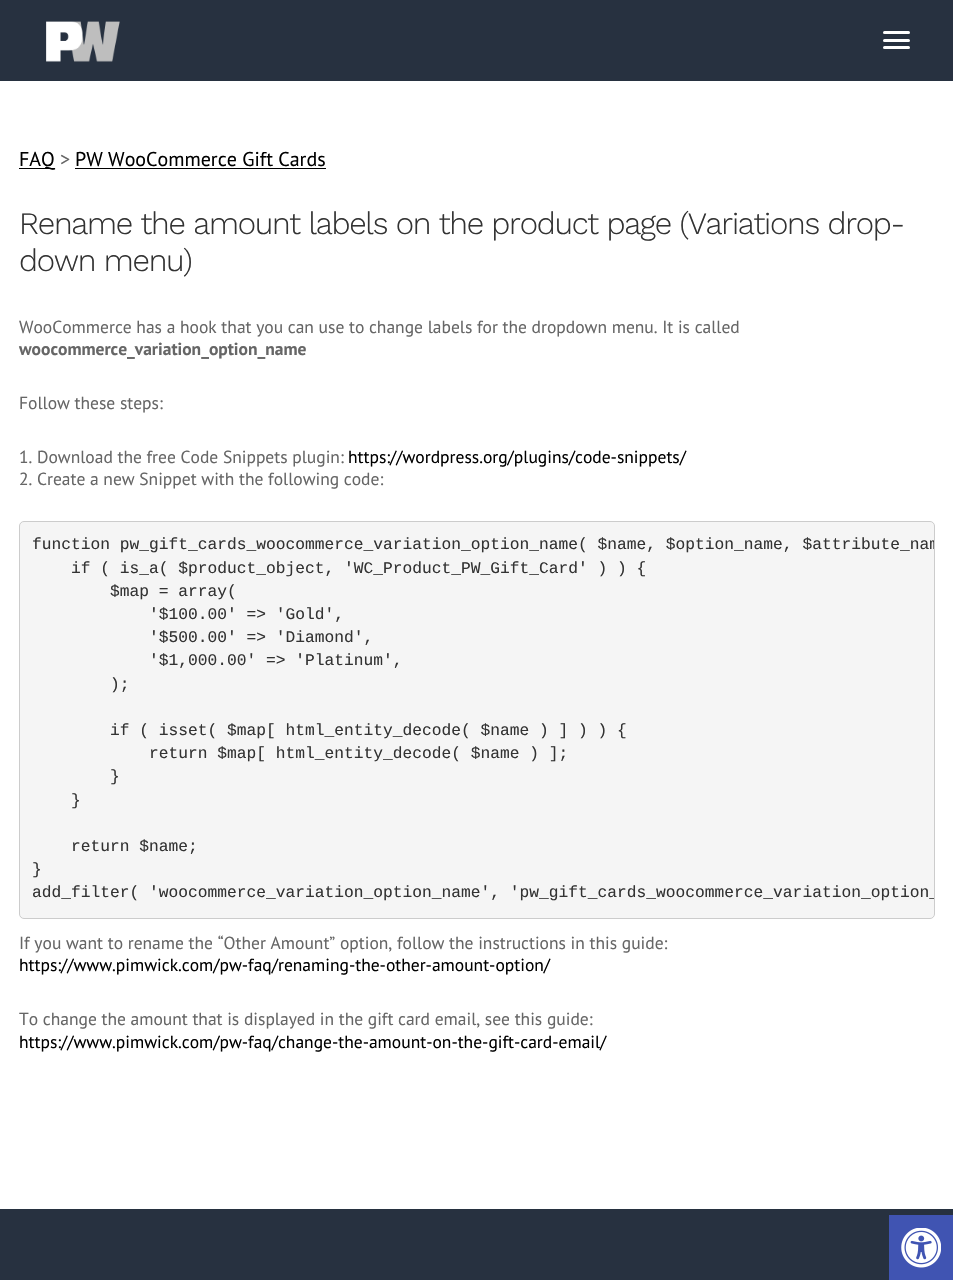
#include "include/core/SkBlurTypes.h"
#include "include/core/SkCanvas.h"
#include "include/core/SkData.h"
#include "include/core/SkFont.h"
#include "include/core/SkFontMgr.h"
#include "include/core/SkImage.h"
#include "include/core/SkMaskFilter.h"
#include "include/core/SkPaint.h"
#include "include/core/SkPathBuilder.h"
#include "include/core/SkTextBlob.h"
#include "include/effects/SkDashPathEffect.h"
#include "include/effects/SkGradientShader.h"
#include "include/utils/SkParsePath.h"

extern sk_sp<SkFontMgr> fontMgr;

static SkFont font(const char* family, int weight, float size, bool italic = false) {
    SkFontStyle style(weight, SkFontStyle::kNormal_Width,
        italic ? SkFontStyle::kItalic_Slant : SkFontStyle::kUpright_Slant);
    SkFont result(fontMgr->matchFamilyStyle(family, style), size);
    result.setSubpixel(true);
    return result;
}

static void drawLabel(SkCanvas* canvas, const char* s, float x, float y, const SkFont& font, SkColor color) {
    SkPaint ink(SkColor4f::FromColor(color));
    ink.setAntiAlias(true);
    canvas->drawString(s, x, y, font, ink);
}

static void drawTracked(SkCanvas* canvas, const char* s, float x, float y, const SkFont& font, const SkPaint& ink, float letter, float word) {
    std::vector<SkGlyphID> glyphs(font.countText(s, strlen(s), SkTextEncoding::kUTF8));
    std::vector<float> xs(glyphs.size());
    font.textToGlyphs(s, strlen(s), SkTextEncoding::kUTF8, glyphs);
    font.getXPos(glyphs, xs, x);
    float extra = 0;
    for (size_t i = 0; i < glyphs.size(); i++) {
        xs[i] += extra;
        extra += letter + word * (glyphs[i] == font.unicharToGlyph(' '));
    }
    canvas->drawTextBlob(SkTextBlob::MakeFromPosHGlyphs(glyphs, xs, y, font), 0, 0, ink);
}

static void fillRect(SkCanvas* canvas, float x, float y, float w, float h, SkColor color) {
    SkPaint ink(SkColor4f::FromColor(color));
    ink.setAntiAlias(true);
    canvas->drawRect(SkRect::MakeXYWH(x, y, w, h), ink);
}

static void fillRRect(SkCanvas* canvas, float x, float y, float w, float h, float radius, SkColor color) {
    SkPaint ink(SkColor4f::FromColor(color));
    ink.setAntiAlias(true);
    canvas->drawRoundRect(SkRect::MakeXYWH(x, y, w, h), radius, radius, ink);
}

static void drawPhoto(SkCanvas* canvas, const char* path, float x, float y, float w, float h) {
    auto image = SkImages::DeferredFromEncodedData(SkData::MakeFromFileName(path));
    canvas->drawImageRect(image, SkRect::MakeXYWH(x, y, w, h), SkSamplingOptions());
}

static SkPath parsePath(const char* data, bool evenOdd = false) {
    SkPath result = *SkParsePath::FromSVGString(data);
    if (evenOdd) result.setFillType(SkPathFillType::kEvenOdd);
    return result;
}

void draw(SkCanvas* canvas) {
    SkPaint paint;
    paint.setAntiAlias(true);
    canvas->clear(0xFFFFFFFF);
    fillRect(canvas, 0, 0, 953, 81, 0xFF273140);
    drawPhoto(canvas, "assets/img1.png", 46, 21, 74, 41);
    fillRRect(canvas, 883, 31, 27, 3, 1.5f, 0xFFFFFFFF);
    fillRRect(canvas, 883, 39, 27, 3, 1.5f, 0xFFFFFFFF);
    fillRRect(canvas, 883, 46, 27, 3, 1.5f, 0xFFFFFFFF);
    fillRect(canvas, 19, 168, 36, 1, 0xFF000000);
    SkFont font1 = font("PT Sans", 400, 20);
    drawLabel(canvas, "FAQ", 19, 166, font1, 0xFF000000);
    drawLabel(canvas, ">", 60, 166, font1, 0xFF666666);
    drawLabel(canvas, "PW WooCommerce Gift Cards", 75, 166, font1, 0xFF000000);
    fillRect(canvas, 75, 168, 251, 1, 0xFF000000);
    SkFont font2 = font("Work Sans", 300, 31.25f);
    paint.setColor(0xFF333333);
    drawTracked(canvas, "Rename the amount labels on the product page (Variations drop-", 19, 234, font2, paint, -1.25f, 0);
    drawTracked(canvas, "down menu)", 19, 271, font2, paint, -1.25f, 0);
    SkFont font3 = font("PT Sans", 400, 17.5f);
    drawLabel(canvas, "WooCommerce has a hook that you can use to change labels for the dropdown menu. It is called", 19, 333, font3, 0xFF666666);
    SkFont font4 = font("PT Sans", 700, 17.5f);
    drawLabel(canvas, "woocommerce_variation_option_name", 19, 355, font4, 0xFF666666);
    drawLabel(canvas, "Follow these steps:", 19, 409, font3, 0xFF666666);
    drawLabel(canvas, "1. Download the free Code Snippets plugin:", 19, 463, font3, 0xFF666666);
    drawLabel(canvas, "https://wordpress.org/plugins/code-snippets/", 348, 463, font3, 0xFF000000);
    drawLabel(canvas, "2. Create a new Snippet with the following code:", 19, 485, font3, 0xFF666666);
    paint.setColor(0xFFF5F5F5);
    canvas->drawRoundRect(SkRect::MakeXYWH(19.5f, 521.5f, 915, 397), 4.5f, 4.5f, paint);
    paint.setStroke(true);
    paint.setStrokeWidth(1);
    paint.setColor(0xFFCCCCCC);
    canvas->drawRoundRect(SkRect::MakeXYWH(19.5f, 521.5f, 915, 397), 4.5f, 4.5f, paint);
    canvas->save();
    canvas->clipPath(parsePath("M24 523H930C932 523 934 525 934 527V914C934 916 932 918 930 918H24C22 918 20 916 20 914V527C20 525 22 523 24 523Z"), true);
    SkFont font5 = font("Liberation Mono", 400, 16.25f);
    drawLabel(canvas, "function pw_gift_cards_woocommerce_variation_option_name( $name, $option_name, $attribute_nam", 32, 549, font5, 0xFF333333);
    canvas->restore();
    drawLabel(canvas, "if ( is_a( $product_object, 'WC_Product_PW_Gift_Card' ) ) {", 71, 573, font5, 0xFF333333);
    drawLabel(canvas, "$map = array(", 110, 596, font5, 0xFF333333);
    drawLabel(canvas, "'$100.00' => 'Gold',", 149, 619, font5, 0xFF333333);
    drawLabel(canvas, "'$500.00' => 'Diamond',", 149, 642, font5, 0xFF333333);
    drawLabel(canvas, "'$1,000.00' => 'Platinum',", 149, 665, font5, 0xFF333333);
    drawLabel(canvas, ");", 110, 689, font5, 0xFF333333);
    drawLabel(canvas, "if ( isset( $map[ html_entity_decode( $name ) ] ) ) {", 110, 735, font5, 0xFF333333);
    drawLabel(canvas, "return $map[ html_entity_decode( $name ) ];", 149, 758, font5, 0xFF333333);
    drawLabel(canvas, "}", 110, 781, font5, 0xFF333333);
    drawLabel(canvas, "}", 71, 805, font5, 0xFF333333);
    drawLabel(canvas, "return $name;", 71, 851, font5, 0xFF333333);
    drawLabel(canvas, "}", 32, 874, font5, 0xFF333333);
    canvas->save();
    canvas->clipPath(parsePath("M24 523H930C932 523 934 525 934 527V914C934 916 932 918 930 918H24C22 918 20 916 20 914V527C20 525 22 523 24 523Z"), true);
    drawLabel(canvas, "add_filter( 'woocommerce_variation_option_name', 'pw_gift_cards_woocommerce_variation_option_", 32, 897, font5, 0xFF333333);
    canvas->restore();
    drawLabel(canvas, "If you want to rename the “Other Amount” option, follow the instructions in this guide:", 19, 949, font3, 0xFF666666);
    drawLabel(canvas, "https://www.pimwick.com/pw-faq/renaming-the-other-amount-option/", 19, 971, font3, 0xFF000000);
    drawLabel(canvas, "To change the amount that is displayed in the gift card email, see this guide:", 19, 1025, font3, 0xFF666666);
    drawLabel(canvas, "https://www.pimwick.com/pw-faq/change-the-amount-on-the-gift-card-email/", 19, 1048, font3, 0xFF000000);
    fillRect(canvas, 0, 1209, 953, 71, 0xFF273140);
    fillRect(canvas, 889, 1215, 64, 65, 0xFF4054B2);
    drawPhoto(canvas, "assets/img2.png", 901, 1228, 40, 40);
}
